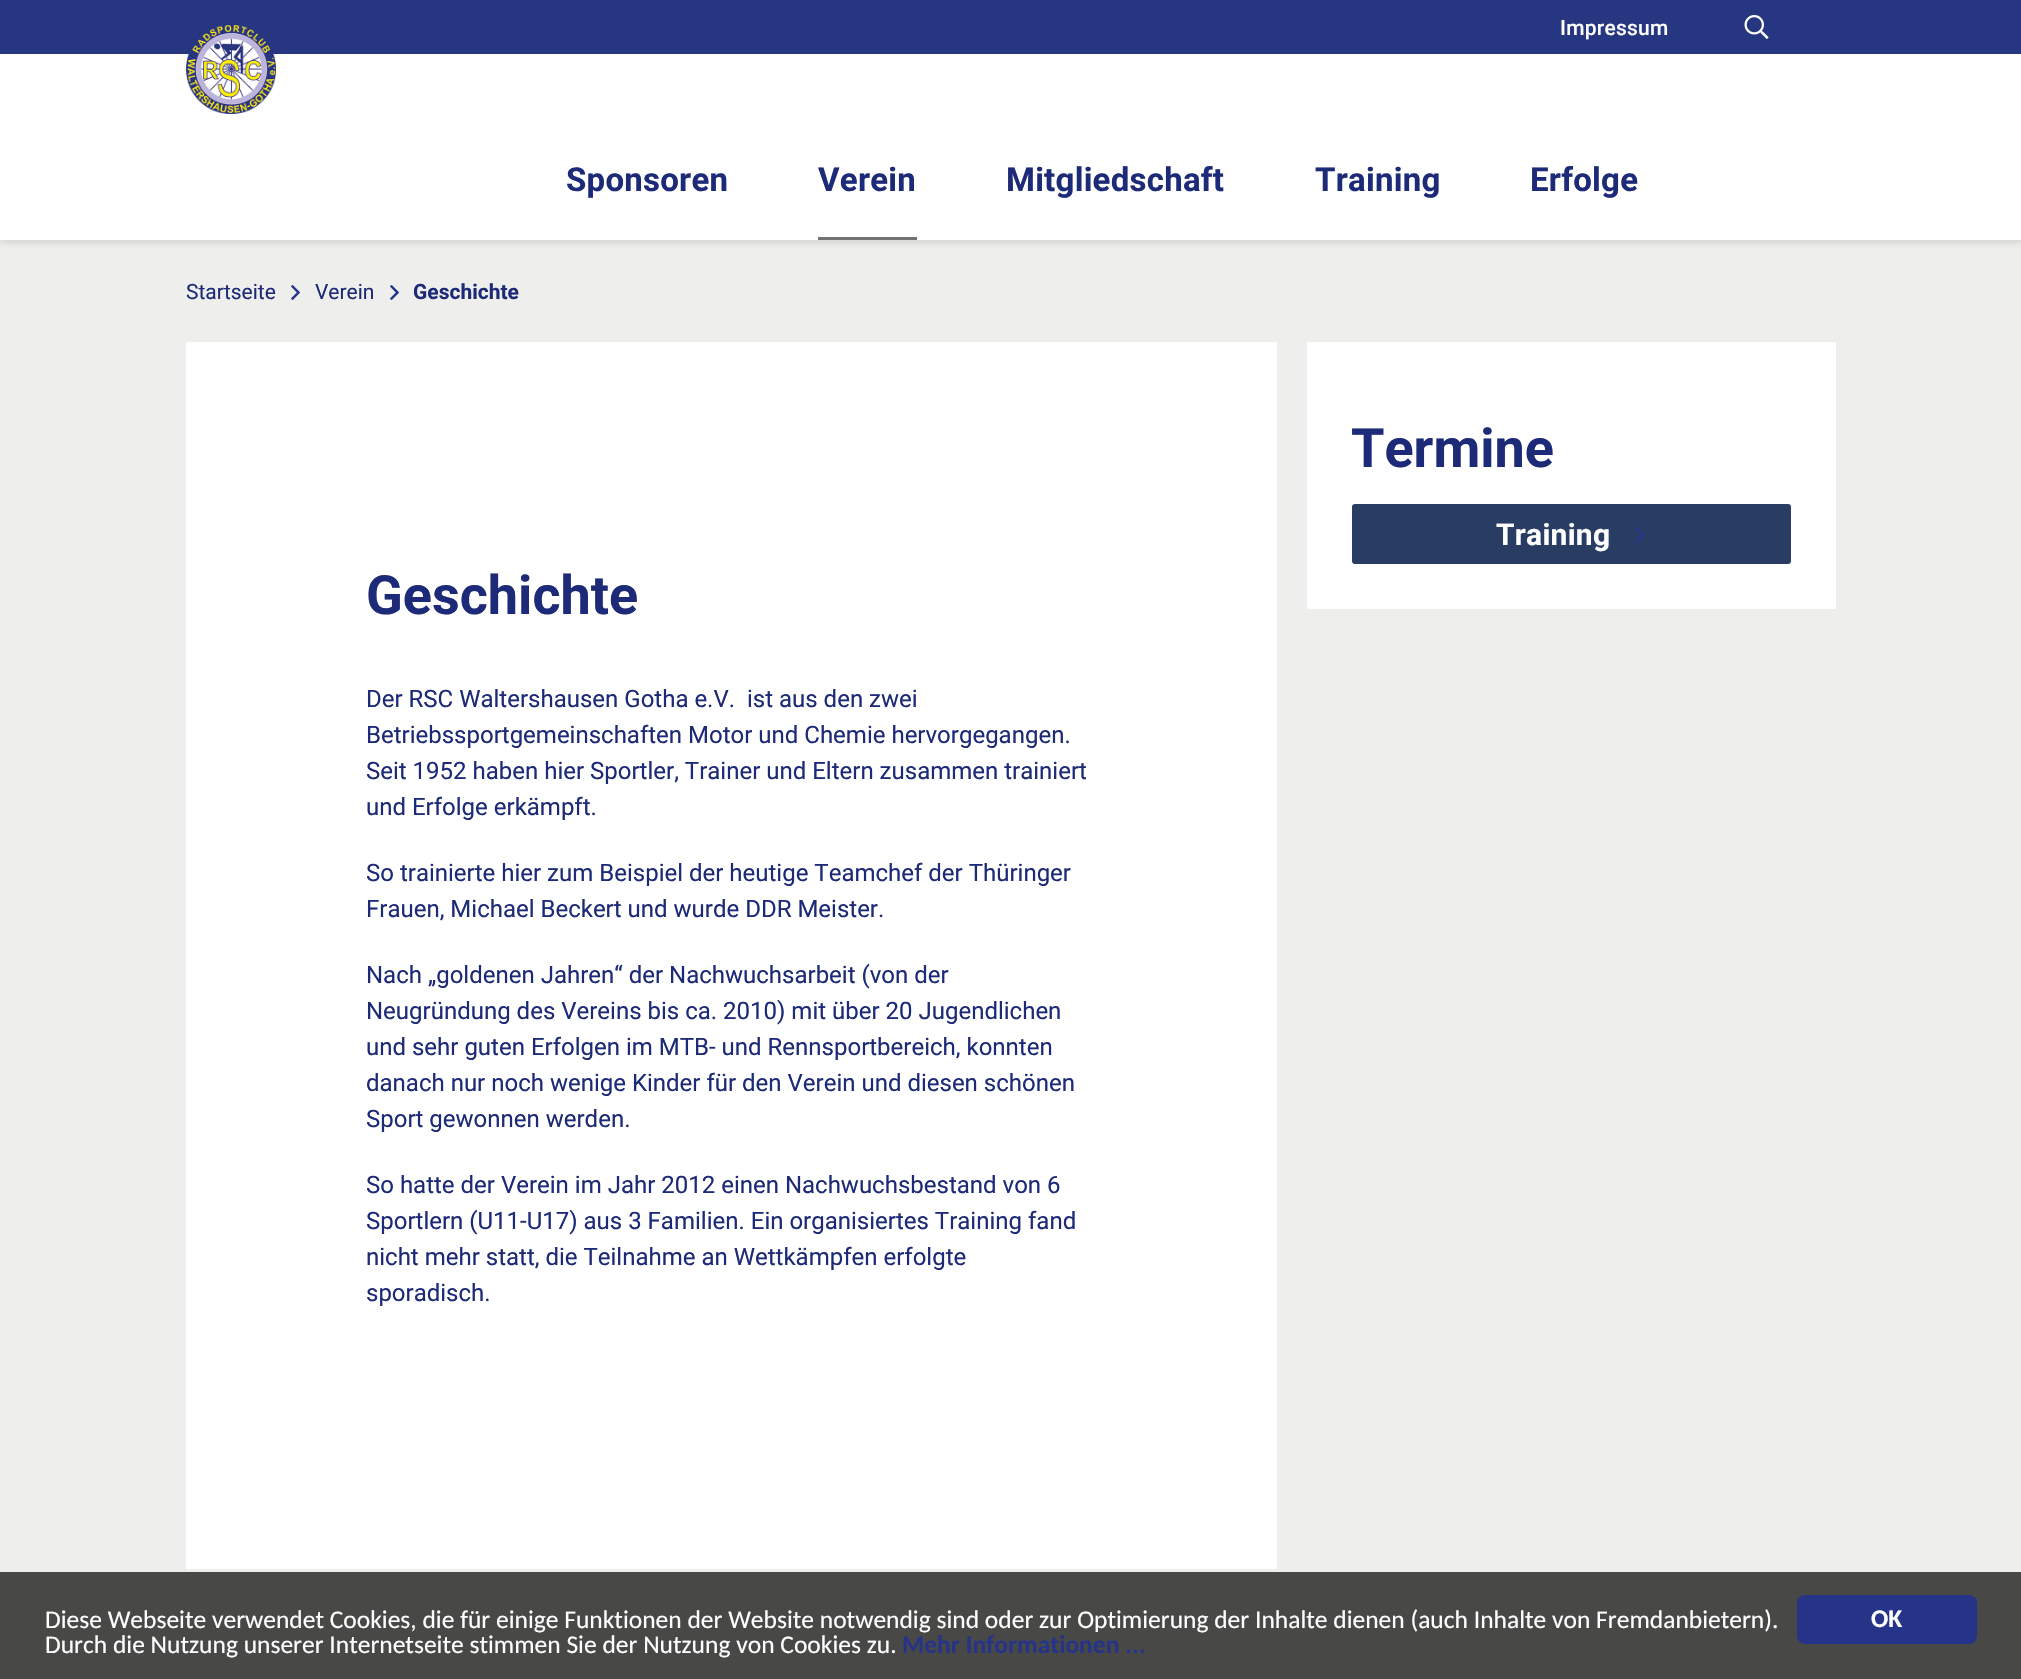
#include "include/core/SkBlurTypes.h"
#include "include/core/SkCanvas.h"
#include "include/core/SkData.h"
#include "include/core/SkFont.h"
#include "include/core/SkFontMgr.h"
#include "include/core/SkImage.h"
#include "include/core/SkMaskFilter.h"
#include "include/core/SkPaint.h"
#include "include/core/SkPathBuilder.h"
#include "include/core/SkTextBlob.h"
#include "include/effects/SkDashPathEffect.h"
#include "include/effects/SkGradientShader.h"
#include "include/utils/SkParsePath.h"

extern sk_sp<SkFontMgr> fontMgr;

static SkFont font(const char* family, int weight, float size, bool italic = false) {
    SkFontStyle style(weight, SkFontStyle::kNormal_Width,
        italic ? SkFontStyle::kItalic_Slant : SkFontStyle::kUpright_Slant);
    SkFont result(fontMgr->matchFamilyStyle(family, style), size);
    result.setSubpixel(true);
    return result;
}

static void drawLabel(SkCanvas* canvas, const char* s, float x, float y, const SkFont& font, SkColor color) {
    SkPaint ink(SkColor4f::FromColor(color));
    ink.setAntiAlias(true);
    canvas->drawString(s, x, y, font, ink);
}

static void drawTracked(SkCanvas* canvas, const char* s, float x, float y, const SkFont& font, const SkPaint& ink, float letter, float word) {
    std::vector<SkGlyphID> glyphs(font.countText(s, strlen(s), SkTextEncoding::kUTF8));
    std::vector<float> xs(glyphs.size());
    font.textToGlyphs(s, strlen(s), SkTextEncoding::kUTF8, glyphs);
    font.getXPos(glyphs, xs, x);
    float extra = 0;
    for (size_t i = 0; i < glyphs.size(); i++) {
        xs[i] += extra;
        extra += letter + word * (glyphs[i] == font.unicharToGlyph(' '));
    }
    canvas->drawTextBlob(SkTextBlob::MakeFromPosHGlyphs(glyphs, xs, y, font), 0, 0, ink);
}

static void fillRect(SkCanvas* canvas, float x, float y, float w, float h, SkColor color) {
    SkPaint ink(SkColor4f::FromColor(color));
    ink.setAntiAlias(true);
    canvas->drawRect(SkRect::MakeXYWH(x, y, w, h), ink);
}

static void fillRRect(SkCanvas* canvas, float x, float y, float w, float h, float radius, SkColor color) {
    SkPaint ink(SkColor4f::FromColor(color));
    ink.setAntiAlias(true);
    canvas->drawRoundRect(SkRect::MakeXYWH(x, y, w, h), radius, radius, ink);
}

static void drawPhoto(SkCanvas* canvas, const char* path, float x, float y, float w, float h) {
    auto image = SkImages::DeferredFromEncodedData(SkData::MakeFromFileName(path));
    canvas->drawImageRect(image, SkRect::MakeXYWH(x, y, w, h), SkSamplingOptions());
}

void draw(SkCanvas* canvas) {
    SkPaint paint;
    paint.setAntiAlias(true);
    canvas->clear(0xFFEEEEED);
    paint.setColor(0x1A000000);
    paint.setMaskFilter(SkMaskFilter::MakeBlur(kNormal_SkBlurStyle, 3));
    canvas->drawRect(SkRect::MakeXYWH(0, 3, 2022, 240), paint);
    paint.setMaskFilter(nullptr);
    fillRect(canvas, 0, 54, 2021, 186, 0xFFFFFFFF);
    fillRect(canvas, 0, 0, 2021, 54, 0xFF263680);
    SkFont font1 = font("Roboto", 500, 21);
    paint.setColor(0xFFFFFFFF);
    drawTracked(canvas, "Impressum", 1560, 35, font1, paint, 0.25f, 0);
    drawPhoto(canvas, "assets/img1.png", 1744, 15, 25, 24);
    drawPhoto(canvas, "assets/img2.png", 186, 24, 90, 90);
    SkFont font2 = font("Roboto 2", 700, 33);
    paint.setColor(0xFF1D2A77);
    drawTracked(canvas, "Sponsoren", 566, 191, font2, paint, 0.25f, 0);
    drawTracked(canvas, "Verein", 818, 191, font2, paint, 0.25f, 0);
    fillRect(canvas, 818, 237, 99, 3, 0xFF727272);
    drawTracked(canvas, "Mitgliedschaft", 1006, 191, font2, paint, 0.25f, 0);
    drawTracked(canvas, "Training", 1315, 191, font2, paint, 0.25f, 0);
    drawTracked(canvas, "Erfolge", 1530, 191, font2, paint, 0.25f, 0);
    SkFont font3 = font("Roboto", 400, 21);
    drawLabel(canvas, "Startseite", 186, 299, font3, 0xFF1D2A77);
    drawPhoto(canvas, "assets/img3.png", 291, 285, 9, 15);
    drawLabel(canvas, "Verein", 315, 299, font3, 0xFF1D2A77);
    drawPhoto(canvas, "assets/img3.png", 390, 285, 9, 15);
    SkFont font4 = font("Roboto", 700, 21);
    drawLabel(canvas, "Geschichte", 413, 299, font4, 0xFF1D2A77);
    fillRect(canvas, 1307, 342, 529, 267, 0xFFFFFFFF);
    SkFont font5 = font("Roboto 2", 700, 54);
    drawLabel(canvas, "Termine", 1351, 467, font5, 0xFF1D2A77);
    paint.setColor(0xFF283C64);
    canvas->drawRoundRect(SkRect::MakeXYWH(1353, 505, 437, 58), 2, 2, paint);
    paint.setStroke(true);
    paint.setStrokeWidth(2);
    canvas->drawRoundRect(SkRect::MakeXYWH(1353, 505, 437, 58), 2, 2, paint);
    SkFont font6 = font("Roboto 2", 700, 30);
    paint.setStroke(false);
    paint.setColor(0xFFFFFFFF);
    drawTracked(canvas, "Training", 1496, 545, font6, paint, 0.25f, 0);
    drawPhoto(canvas, "assets/img4.png", 1635, 527, 10, 17);
    fillRect(canvas, 186, 342, 1091, 1227, 0xFFFFFFFF);
    drawLabel(canvas, "Geschichte", 366, 614, font5, 0xFF1D2A77);
    SkFont font7 = font("Roboto", 400, 24);
    drawLabel(canvas, "Der RSC Waltershausen Gotha e.V.  ist aus den zwei", 366, 707, font7, 0xFF1D2A77);
    drawLabel(canvas, "Betriebssportgemeinschaften Motor und Chemie hervorgegangen.", 366, 743, font7, 0xFF1D2A77);
    drawLabel(canvas, "Seit 1952 haben hier Sportler, Trainer und Eltern zusammen trainiert", 366, 779, font7, 0xFF1D2A77);
    drawLabel(canvas, "und Erfolge erkämpft.", 366, 815, font7, 0xFF1D2A77);
    drawLabel(canvas, "So trainierte hier zum Beispiel der heutige Teamchef der Thüringer", 366, 881, font7, 0xFF1D2A77);
    drawLabel(canvas, "Frauen, Michael Beckert und wurde DDR Meister.", 366, 917, font7, 0xFF1D2A77);
    drawLabel(canvas, "Nach „goldenen Jahren“ der Nachwuchsarbeit (von der", 366, 983, font7, 0xFF1D2A77);
    drawLabel(canvas, "Neugründung des Vereins bis ca. 2010) mit über 20 Jugendlichen", 366, 1019, font7, 0xFF1D2A77);
    drawLabel(canvas, "und sehr guten Erfolgen im MTB- und Rennsportbereich, konnten", 366, 1055, font7, 0xFF1D2A77);
    drawLabel(canvas, "danach nur noch wenige Kinder für den Verein und diesen schönen", 366, 1091, font7, 0xFF1D2A77);
    drawLabel(canvas, "Sport gewonnen werden.", 366, 1127, font7, 0xFF1D2A77);
    drawLabel(canvas, "So hatte der Verein im Jahr 2012 einen Nachwuchsbestand von 6", 366, 1193, font7, 0xFF1D2A77);
    drawLabel(canvas, "Sportlern (U11-U17) aus 3 Familien. Ein organisiertes Training fand", 366, 1229, font7, 0xFF1D2A77);
    drawLabel(canvas, "nicht mehr statt, die Teilnahme an Wettkämpfen erfolgte", 366, 1265, font7, 0xFF1D2A77);
    drawLabel(canvas, "sporadisch.", 366, 1301, font7, 0xFF1D2A77);
    fillRect(canvas, 0, 1572, 2021, 107, 0xFF484847);
    SkFont font8 = font("Carlito", 400, 25.5f);
    drawLabel(canvas, "Diese Webseite verwendet Cookies, die für einige Funktionen der Website notwendig sind oder zur Optimierung der Inhalte dienen (auch Inhalte von Fremdanbietern).", 45, 1628, font8, 0xFFFFFFFF);
    drawLabel(canvas, "Durch die Nutzung unserer Internetseite stimmen Sie der Nutzung von Cookies zu.", 45, 1653, font8, 0xFFFFFFFF);
    SkFont font9 = font("Carlito", 700, 25.5f);
    drawLabel(canvas, "Mehr Informationen ...", 902, 1653, font9, 0xFF253389);
    fillRRect(canvas, 1797, 1595, 180, 49, 8, 0xFF253389);
    drawLabel(canvas, "OK", 1871, 1627, font9, 0xFFFFFFFF);
}
